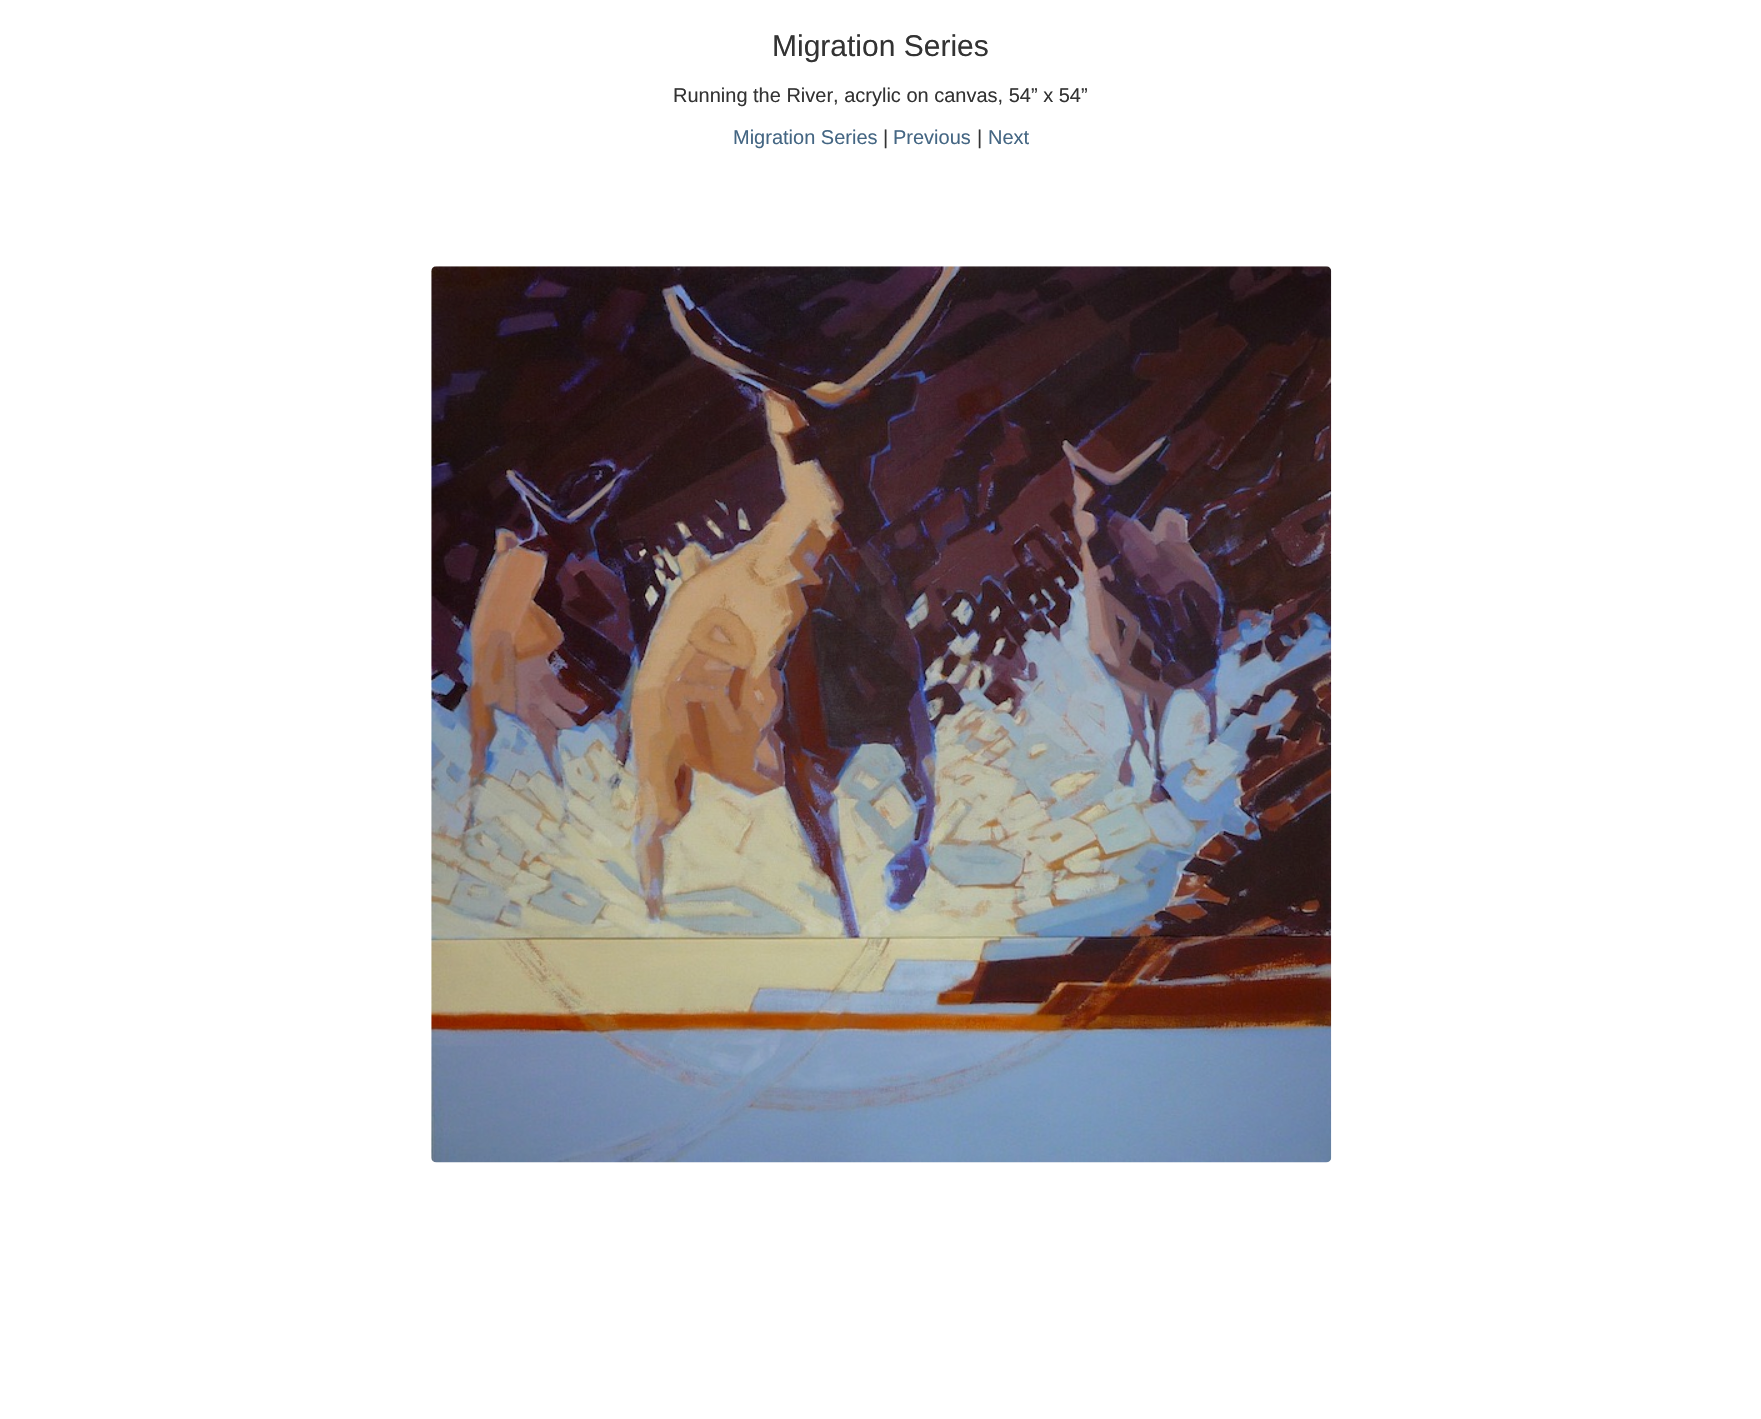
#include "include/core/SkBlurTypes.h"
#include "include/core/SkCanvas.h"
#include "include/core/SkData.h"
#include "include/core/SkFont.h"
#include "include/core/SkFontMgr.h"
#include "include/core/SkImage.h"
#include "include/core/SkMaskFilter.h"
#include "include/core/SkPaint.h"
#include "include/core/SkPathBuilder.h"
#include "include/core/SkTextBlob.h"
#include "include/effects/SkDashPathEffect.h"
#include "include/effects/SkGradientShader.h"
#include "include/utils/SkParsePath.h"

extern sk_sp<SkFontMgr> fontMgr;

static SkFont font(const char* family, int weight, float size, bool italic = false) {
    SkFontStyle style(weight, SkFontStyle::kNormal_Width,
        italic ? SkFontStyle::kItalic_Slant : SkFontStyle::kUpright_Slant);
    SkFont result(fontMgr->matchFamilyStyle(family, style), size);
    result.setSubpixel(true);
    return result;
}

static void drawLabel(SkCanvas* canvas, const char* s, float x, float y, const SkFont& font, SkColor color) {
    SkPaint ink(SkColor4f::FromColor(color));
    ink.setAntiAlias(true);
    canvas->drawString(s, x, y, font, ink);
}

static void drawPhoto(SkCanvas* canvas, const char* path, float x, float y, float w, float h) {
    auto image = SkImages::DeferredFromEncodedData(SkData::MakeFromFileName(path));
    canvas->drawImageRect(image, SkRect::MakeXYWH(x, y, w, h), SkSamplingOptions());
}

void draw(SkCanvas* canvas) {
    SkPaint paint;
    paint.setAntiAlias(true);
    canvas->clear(0xFFFFFFFF);
    SkFont font1 = font("Liberation Sans", 400, 30);
    drawLabel(canvas, "Migration Series", 772, 56, font1, 0xFF333333);
    SkFont font2 = font("Liberation Sans", 400, 20);
    drawLabel(canvas, "Running the River, acrylic on canvas, 54” x 54”", 673, 102, font2, 0xFF333333);
    drawLabel(canvas, "Migration Series", 733, 144, font2, 0xFF446683);
    drawLabel(canvas, "|", 883, 144, font2, 0xFF333333);
    drawLabel(canvas, "Previous", 893, 144, font2, 0xFF446683);
    drawLabel(canvas, "|", 977, 144, font2, 0xFF333333);
    drawLabel(canvas, "Next", 988, 144, font2, 0xFF446683);
    drawPhoto(canvas, "assets/img1.png", 431, 266, 901, 897);
}
